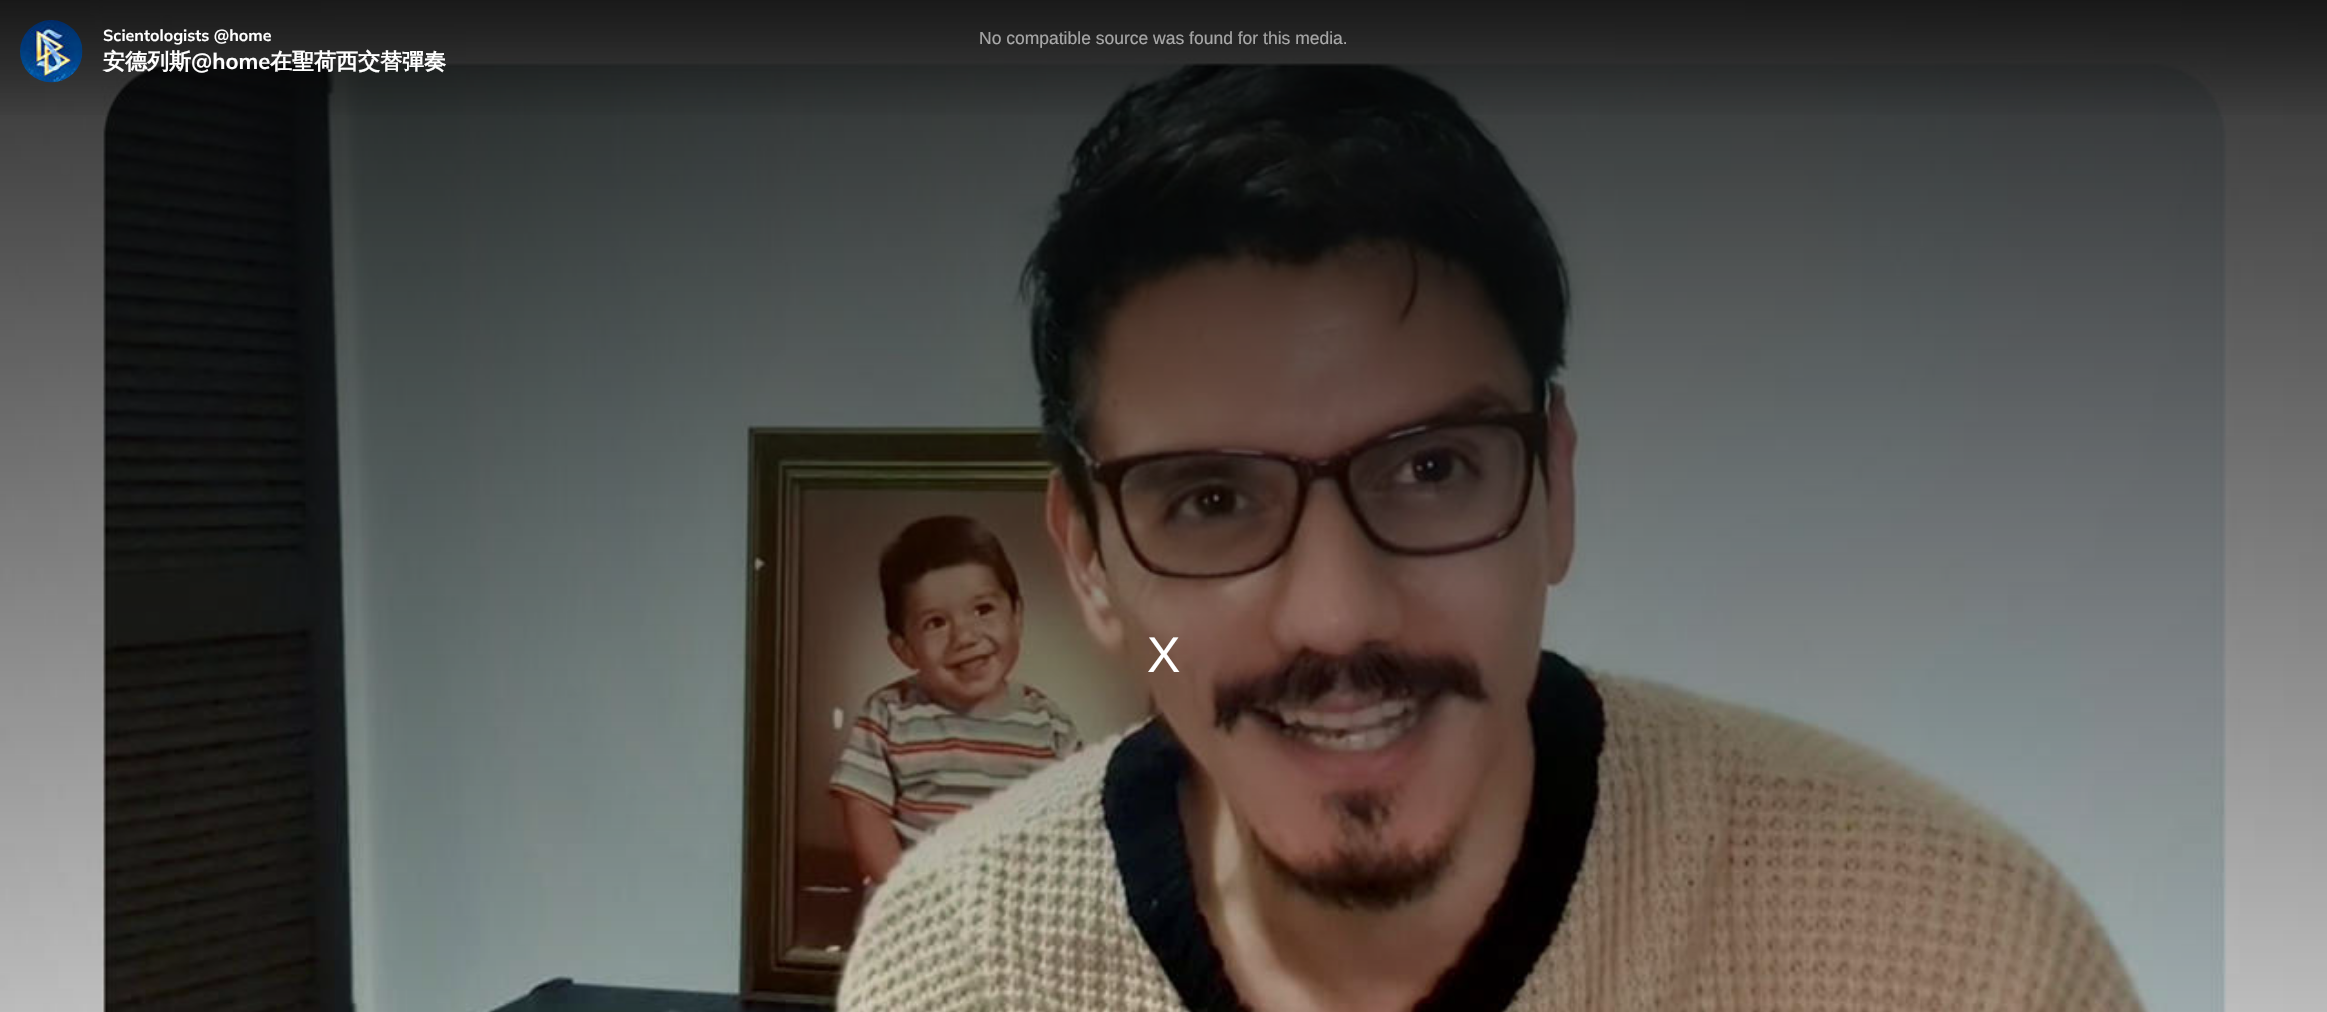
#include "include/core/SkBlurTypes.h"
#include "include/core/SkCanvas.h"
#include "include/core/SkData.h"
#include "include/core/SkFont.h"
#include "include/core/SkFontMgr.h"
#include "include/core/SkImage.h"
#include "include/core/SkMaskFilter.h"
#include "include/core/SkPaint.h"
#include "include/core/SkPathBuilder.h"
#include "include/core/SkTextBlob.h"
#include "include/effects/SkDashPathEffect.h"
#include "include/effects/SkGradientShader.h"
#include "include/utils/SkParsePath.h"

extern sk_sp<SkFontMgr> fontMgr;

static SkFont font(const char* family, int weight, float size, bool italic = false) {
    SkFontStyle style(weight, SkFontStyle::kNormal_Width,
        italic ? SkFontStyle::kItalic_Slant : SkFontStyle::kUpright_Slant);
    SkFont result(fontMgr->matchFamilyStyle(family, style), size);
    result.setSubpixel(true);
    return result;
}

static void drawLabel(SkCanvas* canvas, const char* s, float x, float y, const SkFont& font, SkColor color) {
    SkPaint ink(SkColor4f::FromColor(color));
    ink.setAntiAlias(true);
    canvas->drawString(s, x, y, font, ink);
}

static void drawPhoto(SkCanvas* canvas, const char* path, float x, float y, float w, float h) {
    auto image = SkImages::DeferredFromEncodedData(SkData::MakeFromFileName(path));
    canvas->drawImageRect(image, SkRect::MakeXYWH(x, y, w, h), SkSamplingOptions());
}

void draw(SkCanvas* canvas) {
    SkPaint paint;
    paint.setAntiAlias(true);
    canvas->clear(0xFFFFFFFF);
    drawPhoto(canvas, "assets/img1.png", 0, 0, 2327, 1012);
    SkFont font1 = font("Liberation Sans", 400, 17.5f);
    drawLabel(canvas, "No compatible source was found for this media.", 979, 44, font1, 0xFFFFFFFF);
    {
        const SkColor colors[] = {0x80000000, 0x00000000};
        const float stops[] = {0, 1};
        const SkPoint ends[] = {{1164, 0}, {1164, 125}};
        paint.setShader(SkGradientShader::MakeLinear(ends, colors, stops, 2, SkTileMode::kClamp));
        paint.setAlpha(255);
    }
    canvas->drawRect(SkRect::MakeXYWH(0, 0, 2327, 115), paint);
    drawPhoto(canvas, "assets/img2.png", 20, 20, 63, 63);
    SkFont font2 = font("Mulish", 700, 16);
    drawLabel(canvas, "Scientologists @home", 103, 41, font2, 0xFFFFFFFF);
    SkFont font3 = font("WenQuanYi Zen Hei", 700, 22);
    drawLabel(canvas, "安德列斯", 103, 69, font3, 0xFFFFFFFF);
    SkFont font4 = font("Mulish", 700, 22);
    drawLabel(canvas, "@home", 191, 69, font4, 0xFFFFFFFF);
    drawLabel(canvas, "在聖荷西交替彈奏", 270, 69, font3, 0xFFFFFFFF);
    SkFont font5 = font("Liberation Sans", 400, 50);
    drawLabel(canvas, "X", 1147, 672, font5, 0xFFFFFFFF);
}
